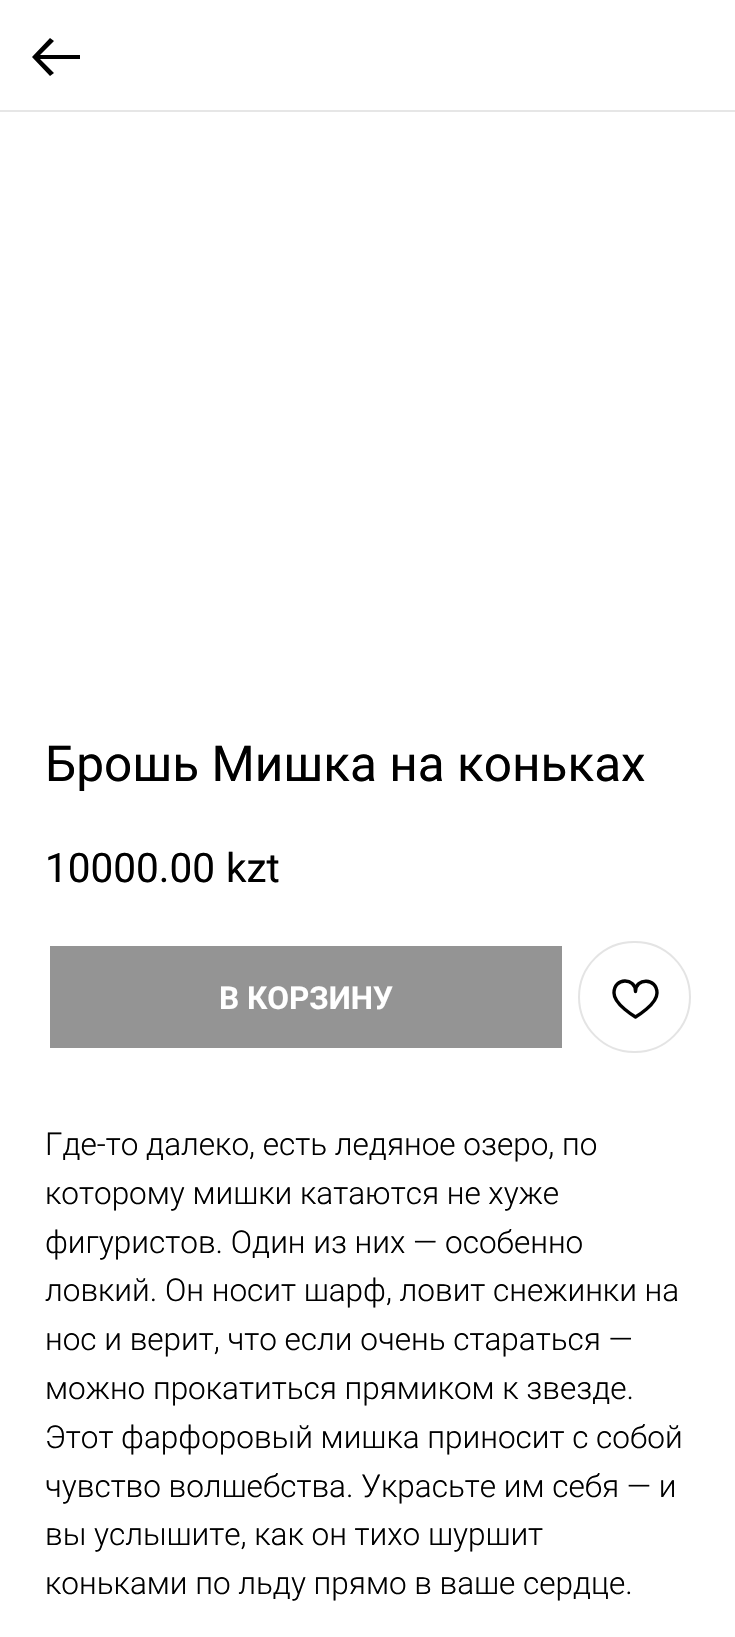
#include "include/core/SkBlurTypes.h"
#include "include/core/SkCanvas.h"
#include "include/core/SkData.h"
#include "include/core/SkFont.h"
#include "include/core/SkFontMgr.h"
#include "include/core/SkImage.h"
#include "include/core/SkMaskFilter.h"
#include "include/core/SkPaint.h"
#include "include/core/SkPathBuilder.h"
#include "include/core/SkTextBlob.h"
#include "include/effects/SkDashPathEffect.h"
#include "include/effects/SkGradientShader.h"
#include "include/utils/SkParsePath.h"

extern sk_sp<SkFontMgr> fontMgr;

static SkFont font(const char* family, int weight, float size, bool italic = false) {
    SkFontStyle style(weight, SkFontStyle::kNormal_Width,
        italic ? SkFontStyle::kItalic_Slant : SkFontStyle::kUpright_Slant);
    SkFont result(fontMgr->matchFamilyStyle(family, style), size);
    result.setSubpixel(true);
    return result;
}

static void drawLabel(SkCanvas* canvas, const char* s, float x, float y, const SkFont& font, SkColor color) {
    SkPaint ink(SkColor4f::FromColor(color));
    ink.setAntiAlias(true);
    canvas->drawString(s, x, y, font, ink);
}

static void fillRect(SkCanvas* canvas, float x, float y, float w, float h, SkColor color) {
    SkPaint ink(SkColor4f::FromColor(color));
    ink.setAntiAlias(true);
    canvas->drawRect(SkRect::MakeXYWH(x, y, w, h), ink);
}

static SkPath parsePath(const char* data, bool evenOdd = false) {
    SkPath result = *SkParsePath::FromSVGString(data);
    if (evenOdd) result.setFillType(SkPathFillType::kEvenOdd);
    return result;
}

void draw(SkCanvas* canvas) {
    SkPaint paint;
    paint.setAntiAlias(true);
    canvas->clear(0xFFFFFFFF);
    fillRect(canvas, 0, 110, 735, 2, 0xFFE6E6E6);
    paint.setColor(0xFF000000);
    canvas->drawPath(parsePath("M50 38L54 41L40 55H80V59H40L54 73L50 76L32 57Z"), paint);
    SkFont font1 = font("Roboto", 400, 49.5f);
    drawLabel(canvas, "Брошь Мишка на коньках", 45, 781, font1, 0xFF000000);
    SkFont font2 = font("Roboto", 400, 40.5f);
    drawLabel(canvas, "10000.00", 45, 882, font2, 0xFF000000);
    drawLabel(canvas, "kzt", 226, 882, font2, 0xFF000000);
    fillRect(canvas, 50, 946, 512, 102, 0xFF949494);
    SkFont font3 = font("Roboto", 700, 31.5f);
    drawLabel(canvas, "В КОРЗИНУ", 219, 1009, font3, 0xFFFFFFFF);
    paint.setStroke(true);
    paint.setStrokeWidth(2);
    paint.setColor(0xFFE4E4E4);
    canvas->drawRoundRect(SkRect::MakeXYWH(579, 942, 111, 110), 55, 55, paint);
    paint.setStrokeWidth(3.4f);
    paint.setStrokeJoin(SkPaint::kRound_Join);
    paint.setColor(0xFF000000);
    canvas->drawPath(parsePath("M657 993C657 1004.5 635.5 1017 635.5 1017C635.5 1017 614 1004.5 614 993C614 977 635.5 977.5 635.5 991.5C635.5 977.5 657 977.5 657 993Z"), paint);
    SkFont font4 = font("Roboto", 300, 31.5f);
    drawLabel(canvas, "Где-то далеко, есть ледяное озеро, по", 45, 1155, font4, 0xFF000000);
    drawLabel(canvas, "которому мишки катаются не хуже", 45, 1204, font4, 0xFF000000);
    drawLabel(canvas, "фигуристов. Один из них — особенно", 45, 1253, font4, 0xFF000000);
    drawLabel(canvas, "ловкий. Он носит шарф, ловит снежинки на", 45, 1301, font4, 0xFF000000);
    drawLabel(canvas, "нос и верит, что если очень стараться —", 45, 1350, font4, 0xFF000000);
    drawLabel(canvas, "можно прокатиться прямиком к звезде.", 45, 1399, font4, 0xFF000000);
    drawLabel(canvas, "Этот фарфоровый мишка приносит с собой", 45, 1448, font4, 0xFF000000);
    drawLabel(canvas, "чувство волшебства. Украсьте им себя — и", 45, 1497, font4, 0xFF000000);
    drawLabel(canvas, "вы услышите, как он тихо шуршит", 45, 1545, font4, 0xFF000000);
    drawLabel(canvas, "коньками по льду прямо в ваше сердце.", 45, 1594, font4, 0xFF000000);
}
